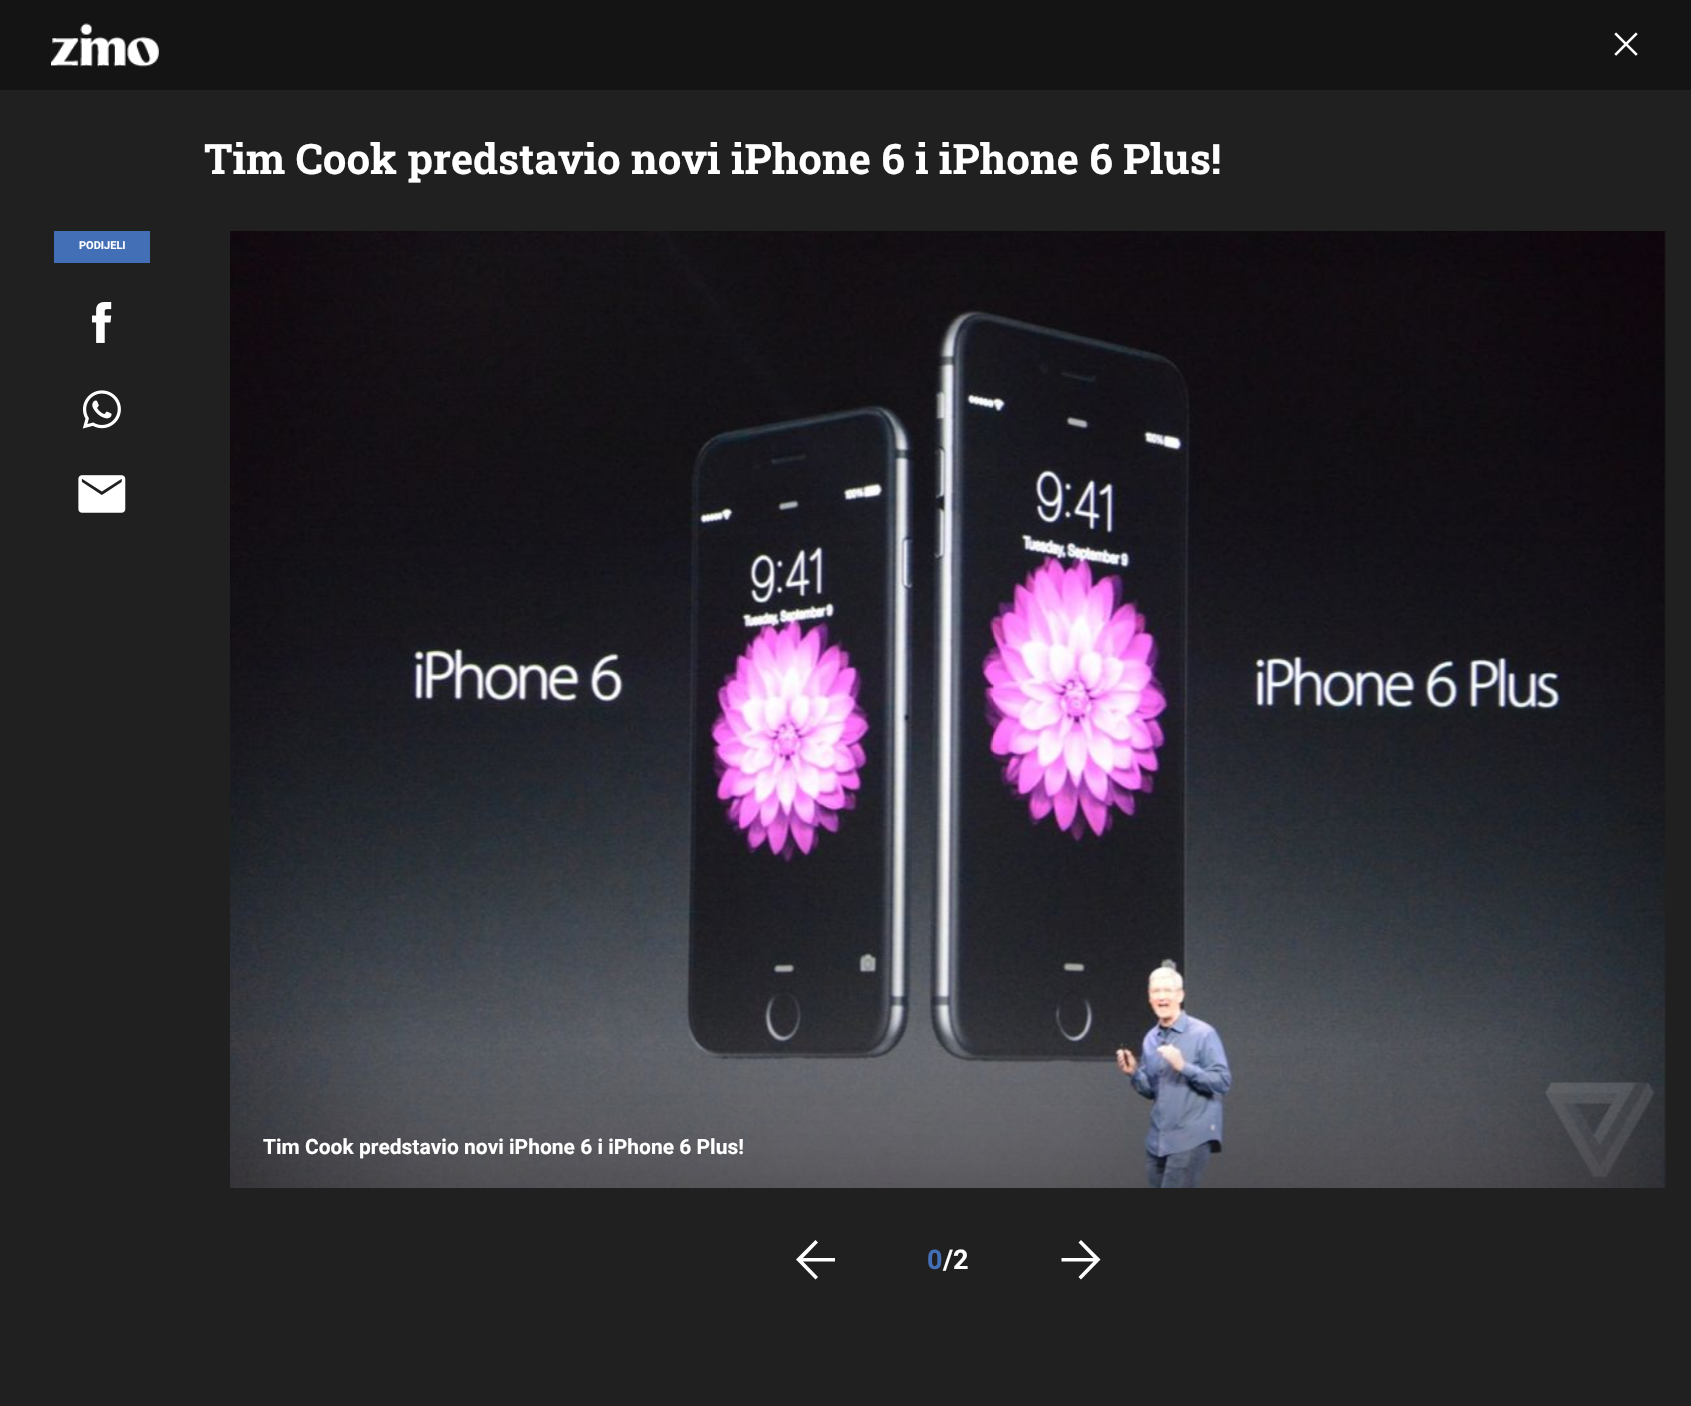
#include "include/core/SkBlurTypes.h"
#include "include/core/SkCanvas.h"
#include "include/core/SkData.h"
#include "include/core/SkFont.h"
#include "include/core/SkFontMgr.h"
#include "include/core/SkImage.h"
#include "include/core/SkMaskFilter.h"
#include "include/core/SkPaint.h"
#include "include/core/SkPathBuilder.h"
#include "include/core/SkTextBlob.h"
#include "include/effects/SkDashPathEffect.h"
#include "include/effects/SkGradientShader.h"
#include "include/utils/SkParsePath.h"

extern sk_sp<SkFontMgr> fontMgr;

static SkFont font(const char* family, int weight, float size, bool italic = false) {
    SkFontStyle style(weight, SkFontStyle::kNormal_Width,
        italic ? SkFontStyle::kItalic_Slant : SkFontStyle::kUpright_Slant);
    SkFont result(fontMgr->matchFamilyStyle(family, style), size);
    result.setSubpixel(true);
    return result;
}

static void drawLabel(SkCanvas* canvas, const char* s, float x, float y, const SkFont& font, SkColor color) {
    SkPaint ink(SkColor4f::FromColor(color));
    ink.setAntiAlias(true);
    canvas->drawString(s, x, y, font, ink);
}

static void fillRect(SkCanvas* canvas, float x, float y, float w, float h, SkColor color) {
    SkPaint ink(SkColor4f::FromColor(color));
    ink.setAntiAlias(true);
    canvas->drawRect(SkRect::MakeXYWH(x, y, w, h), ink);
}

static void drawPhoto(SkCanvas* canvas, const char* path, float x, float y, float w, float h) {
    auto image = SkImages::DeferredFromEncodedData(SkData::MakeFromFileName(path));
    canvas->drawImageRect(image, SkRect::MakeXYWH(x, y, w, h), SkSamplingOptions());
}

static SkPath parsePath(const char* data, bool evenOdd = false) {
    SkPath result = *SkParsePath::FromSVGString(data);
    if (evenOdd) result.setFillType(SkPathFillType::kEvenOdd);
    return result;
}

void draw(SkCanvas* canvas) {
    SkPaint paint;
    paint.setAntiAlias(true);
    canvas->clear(0xFF202020);
    fillRect(canvas, 0, 0, 1691, 90, 0xFF141414);
    drawPhoto(canvas, "assets/img1.png", 51, 23, 108, 44);
    drawPhoto(canvas, "assets/img2.png", 1614, 32, 24, 24);
    SkFont font1 = font("Roboto Slab", 700, 42);
    drawLabel(canvas, "Tim Cook predstavio novi iPhone 6 i iPhone 6 Plus!", 204, 174, font1, 0xFFFFFFFF);
    fillRect(canvas, 54, 231, 96, 32, 0xFF426FB5);
    SkFont font2 = font("Roboto", 700, 11);
    drawLabel(canvas, "PODIJELI", 79, 249, font2, 0xFFFFFFFF);
    drawPhoto(canvas, "assets/img3.png", 92, 302, 20, 41);
    drawPhoto(canvas, "assets/img4.png", 82, 390, 39, 39);
    drawPhoto(canvas, "assets/img5.png", 78, 475, 48, 38);
    drawPhoto(canvas, "assets/img6.png", 230, 231, 1436, 957);
    {
        const SkColor colors[] = {0x66141414, 0x00141414};
        const float stops[] = {0, 1};
        const SkPoint ends[] = {{947, 1188}, {947, 1041}};
        paint.setShader(SkGradientShader::MakeLinear(ends, colors, stops, 2, SkTileMode::kClamp));
        paint.setAlpha(255);
    }
    canvas->drawRect(SkRect::MakeXYWH(230, 1049, 1435, 139), paint);
    SkFont font3 = font("Roboto", 700, 21);
    drawLabel(canvas, "Tim Cook predstavio novi iPhone 6 i iPhone 6 Plus!", 263, 1154, font3, 0xFFFFFFFF);
    paint.setShader(nullptr);
    paint.setColor(0xFFFFFFFF);
    canvas->drawPath(parsePath("M815.5 1279.5L818 1277L803 1261.5H835V1258H803L818 1242.5L815.5 1240L796 1259.5Z"), paint);
    SkFont font4 = font("Roboto", 700, 27);
    drawLabel(canvas, "0", 927, 1269, font4, 0xFF426FB5);
    drawLabel(canvas, "/2", 943, 1269, font4, 0xFFFFFFFF);
    canvas->drawPath(parsePath("M1081 1279.5L1078.5 1277L1093.5 1261.5H1061.5V1258H1093.5L1078.5 1242.5L1081 1240L1100.5 1259.5Z"), paint);
}
